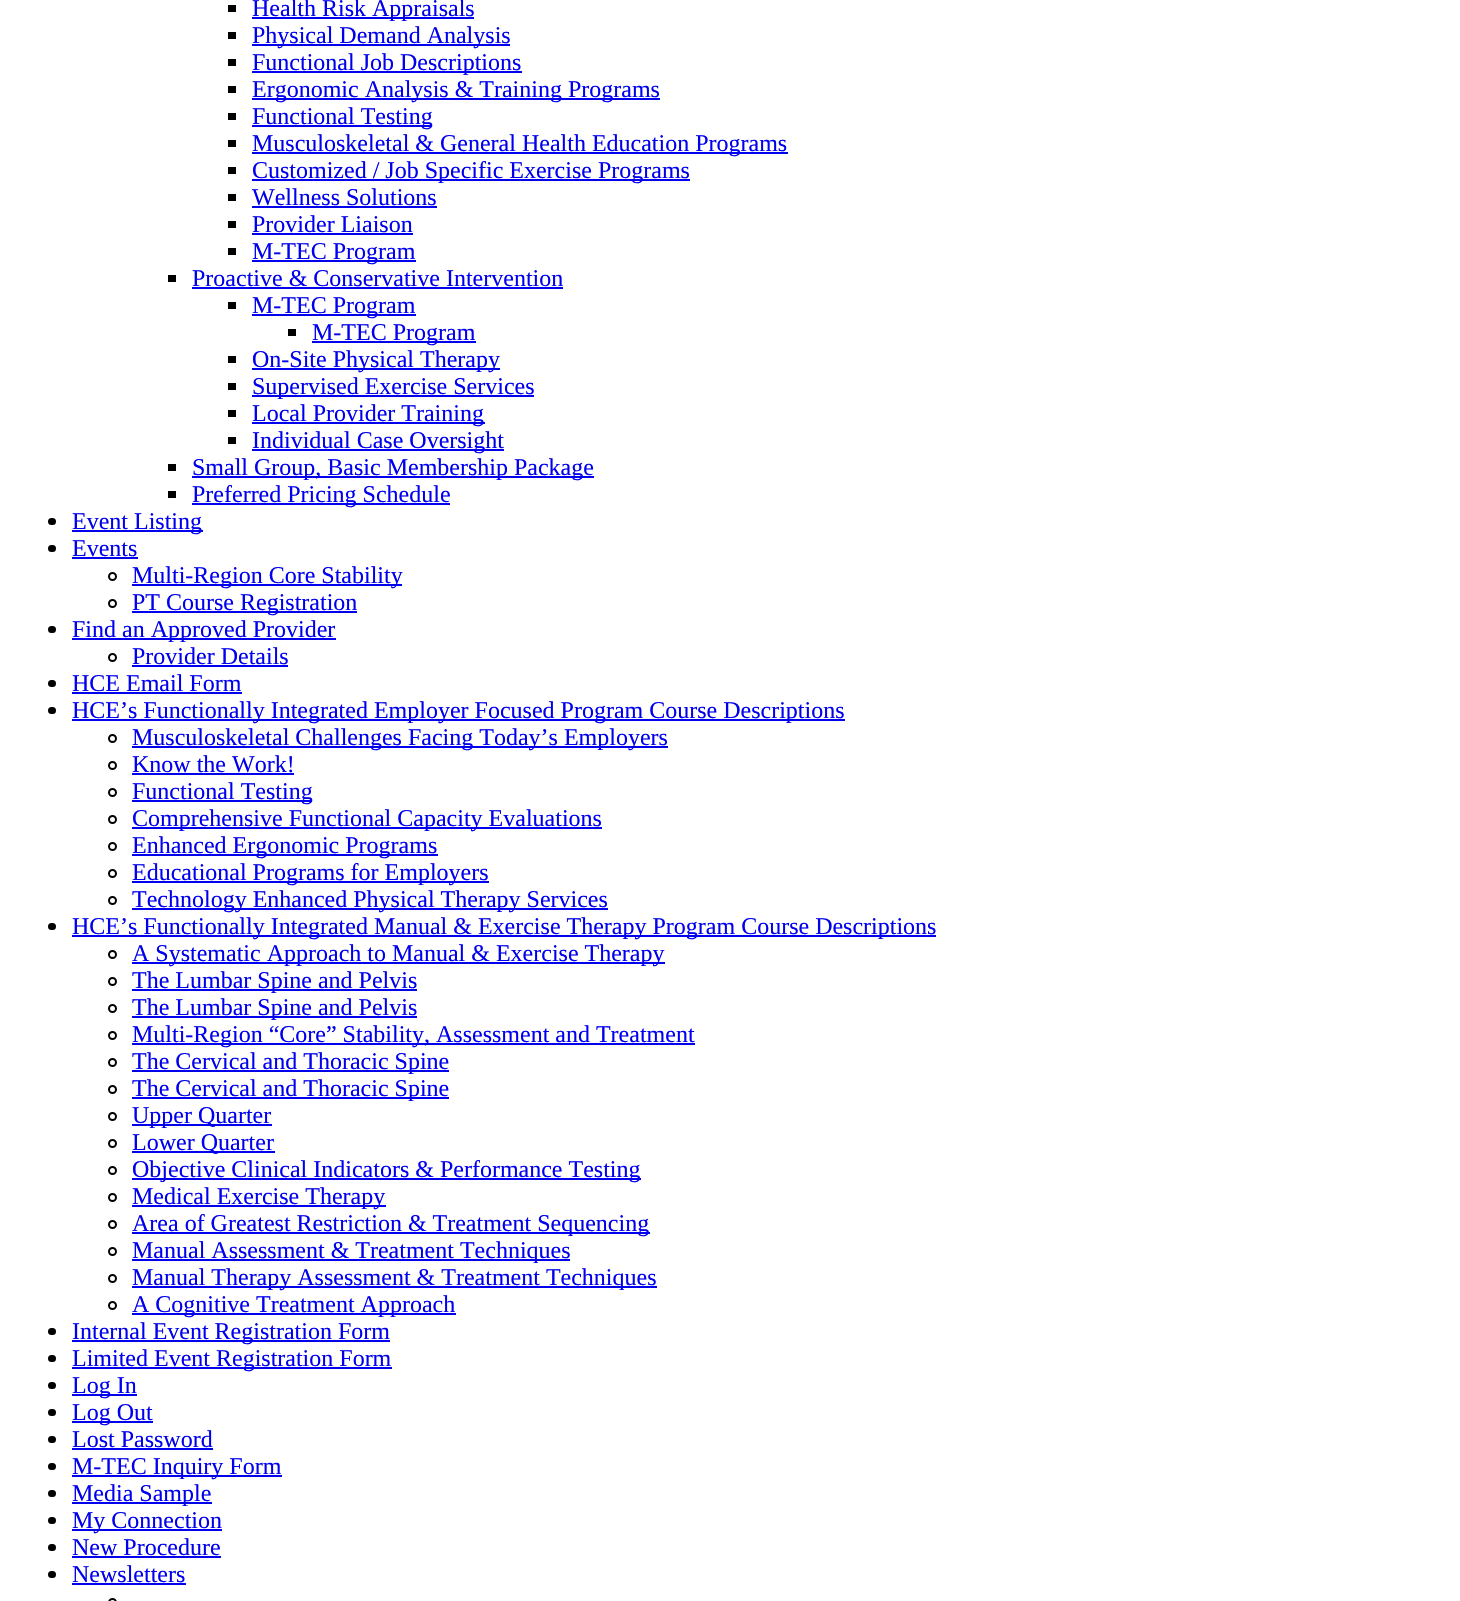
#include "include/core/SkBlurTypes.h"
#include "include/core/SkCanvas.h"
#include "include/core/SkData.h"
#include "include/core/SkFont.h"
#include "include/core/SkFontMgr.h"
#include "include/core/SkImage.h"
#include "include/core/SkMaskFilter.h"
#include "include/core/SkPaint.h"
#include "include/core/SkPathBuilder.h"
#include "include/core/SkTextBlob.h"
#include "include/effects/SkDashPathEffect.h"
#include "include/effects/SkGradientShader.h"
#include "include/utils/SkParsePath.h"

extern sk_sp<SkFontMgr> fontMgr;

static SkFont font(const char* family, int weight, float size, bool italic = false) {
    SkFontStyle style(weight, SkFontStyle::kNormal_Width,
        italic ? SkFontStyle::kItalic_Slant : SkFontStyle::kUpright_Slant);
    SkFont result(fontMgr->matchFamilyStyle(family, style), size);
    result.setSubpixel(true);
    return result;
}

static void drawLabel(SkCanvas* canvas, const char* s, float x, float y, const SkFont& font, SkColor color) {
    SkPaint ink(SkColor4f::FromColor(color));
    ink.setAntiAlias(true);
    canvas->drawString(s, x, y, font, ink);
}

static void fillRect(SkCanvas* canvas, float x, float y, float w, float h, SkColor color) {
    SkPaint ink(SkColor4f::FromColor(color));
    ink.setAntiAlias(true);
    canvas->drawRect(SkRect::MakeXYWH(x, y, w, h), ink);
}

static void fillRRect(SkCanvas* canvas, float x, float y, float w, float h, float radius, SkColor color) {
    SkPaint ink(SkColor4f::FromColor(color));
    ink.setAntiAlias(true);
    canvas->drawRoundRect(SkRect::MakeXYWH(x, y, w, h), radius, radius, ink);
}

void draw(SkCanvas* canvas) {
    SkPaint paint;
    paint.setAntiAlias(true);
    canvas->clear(0xFFFFFFFF);
    fillRect(canvas, 228, 5, 8, 7, 0xFF000000);
    fillRect(canvas, 252, 17, 222, 2, 0xFF0000EE);
    SkFont font1 = font("Liberation Serif", 400, 24);
    drawLabel(canvas, "Health Risk Appraisals", 252, 16, font1, 0xFF0000EE);
    fillRect(canvas, 228, 32, 8, 7, 0xFF000000);
    fillRect(canvas, 252, 44, 258, 2, 0xFF0000EE);
    drawLabel(canvas, "Physical Demand Analysis", 252, 43, font1, 0xFF0000EE);
    fillRect(canvas, 228, 59, 8, 7, 0xFF000000);
    fillRect(canvas, 252, 71, 270, 2, 0xFF0000EE);
    drawLabel(canvas, "Functional Job Descriptions", 252, 70, font1, 0xFF0000EE);
    fillRect(canvas, 228, 86, 8, 7, 0xFF000000);
    fillRect(canvas, 252, 98, 408, 2, 0xFF0000EE);
    drawLabel(canvas, "Ergonomic Analysis & Training Programs", 252, 97, font1, 0xFF0000EE);
    fillRect(canvas, 228, 113, 8, 7, 0xFF000000);
    fillRect(canvas, 252, 125, 180, 2, 0xFF0000EE);
    drawLabel(canvas, "Functional Testing", 252, 124, font1, 0xFF0000EE);
    fillRect(canvas, 228, 140, 8, 7, 0xFF000000);
    fillRect(canvas, 252, 152, 536, 2, 0xFF0000EE);
    drawLabel(canvas, "Musculoskeletal & General Health Education Programs", 252, 151, font1, 0xFF0000EE);
    fillRect(canvas, 228, 167, 8, 7, 0xFF000000);
    fillRect(canvas, 252, 179, 438, 2, 0xFF0000EE);
    drawLabel(canvas, "Customized / Job Specific Exercise Programs", 252, 178, font1, 0xFF0000EE);
    fillRect(canvas, 228, 194, 8, 7, 0xFF000000);
    drawLabel(canvas, "Wellness Solutions", 252, 205, font1, 0xFF0000EE);
    fillRect(canvas, 252, 206, 185, 2, 0xFF0000EE);
    fillRect(canvas, 228, 221, 8, 7, 0xFF000000);
    drawLabel(canvas, "Provider Liaison", 252, 232, font1, 0xFF0000EE);
    fillRect(canvas, 252, 233, 161, 2, 0xFF0000EE);
    fillRect(canvas, 228, 248, 8, 7, 0xFF000000);
    fillRect(canvas, 252, 260, 164, 2, 0xFF0000EE);
    drawLabel(canvas, "M-TEC Program", 252, 259, font1, 0xFF0000EE);
    fillRect(canvas, 168, 275, 8, 7, 0xFF000000);
    drawLabel(canvas, "Proactive & Conservative Intervention", 192, 286, font1, 0xFF0000EE);
    fillRect(canvas, 192, 287, 371, 2, 0xFF0000EE);
    fillRect(canvas, 228, 302, 8, 7, 0xFF000000);
    fillRect(canvas, 252, 314, 164, 2, 0xFF0000EE);
    drawLabel(canvas, "M-TEC Program", 252, 313, font1, 0xFF0000EE);
    fillRect(canvas, 288, 329, 8, 7, 0xFF000000);
    fillRect(canvas, 312, 341, 164, 2, 0xFF0000EE);
    drawLabel(canvas, "M-TEC Program", 312, 340, font1, 0xFF0000EE);
    fillRect(canvas, 228, 356, 8, 7, 0xFF000000);
    fillRect(canvas, 252, 368, 248, 2, 0xFF0000EE);
    drawLabel(canvas, "On-Site Physical Therapy", 252, 367, font1, 0xFF0000EE);
    fillRect(canvas, 228, 383, 8, 7, 0xFF000000);
    fillRect(canvas, 252, 395, 282, 2, 0xFF0000EE);
    drawLabel(canvas, "Supervised Exercise Services", 252, 394, font1, 0xFF0000EE);
    fillRect(canvas, 228, 410, 8, 7, 0xFF000000);
    fillRect(canvas, 252, 422, 233, 2, 0xFF0000EE);
    drawLabel(canvas, "Local Provider Training", 252, 421, font1, 0xFF0000EE);
    fillRect(canvas, 228, 437, 8, 7, 0xFF000000);
    fillRect(canvas, 252, 449, 252, 2, 0xFF0000EE);
    drawLabel(canvas, "Individual Case Oversight", 252, 448, font1, 0xFF0000EE);
    fillRect(canvas, 168, 464, 8, 7, 0xFF000000);
    fillRect(canvas, 192, 476, 402, 2, 0xFF0000EE);
    drawLabel(canvas, "Small Group, Basic Membership Package", 192, 475, font1, 0xFF0000EE);
    fillRect(canvas, 168, 491, 8, 7, 0xFF000000);
    fillRect(canvas, 192, 503, 258, 2, 0xFF0000EE);
    drawLabel(canvas, "Preferred Pricing Schedule", 192, 502, font1, 0xFF0000EE);
    fillRRect(canvas, 48, 518, 8, 7, 3.5f, 0xFF000000);
    fillRect(canvas, 72, 530, 131, 2, 0xFF0000EE);
    drawLabel(canvas, "Event Listing", 72, 529, font1, 0xFF0000EE);
    fillRRect(canvas, 48, 545, 8, 7, 3.5f, 0xFF000000);
    drawLabel(canvas, "Events", 72, 556, font1, 0xFF0000EE);
    fillRect(canvas, 72, 557, 66, 2, 0xFF0000EE);
    paint.setStroke(true);
    paint.setStrokeWidth(2);
    paint.setColor(0xFF000000);
    canvas->drawCircle(112.5f, 576.5f, 3.5f, paint);
    fillRect(canvas, 132, 584, 270, 2, 0xFF0000EE);
    drawLabel(canvas, "Multi-Region Core Stability", 132, 583, font1, 0xFF0000EE);
    canvas->drawCircle(112.5f, 603.5f, 3.5f, paint);
    fillRect(canvas, 132, 611, 225, 2, 0xFF0000EE);
    drawLabel(canvas, "PT Course Registration", 132, 610, font1, 0xFF0000EE);
    fillRRect(canvas, 48, 626, 8, 7, 3.5f, 0xFF000000);
    fillRect(canvas, 72, 638, 264, 2, 0xFF0000EE);
    drawLabel(canvas, "Find an Approved Provider", 72, 637, font1, 0xFF0000EE);
    canvas->drawCircle(112.5f, 657.5f, 3.5f, paint);
    drawLabel(canvas, "Provider Details", 132, 664, font1, 0xFF0000EE);
    fillRect(canvas, 132, 665, 156, 2, 0xFF0000EE);
    fillRRect(canvas, 48, 680, 8, 7, 3.5f, 0xFF000000);
    drawLabel(canvas, "HCE Email Form", 72, 691, font1, 0xFF0000EE);
    fillRect(canvas, 72, 692, 170, 2, 0xFF0000EE);
    fillRRect(canvas, 48, 707, 8, 7, 3.5f, 0xFF000000);
    fillRect(canvas, 72, 719, 773, 2, 0xFF0000EE);
    drawLabel(canvas, "HCE’s Functionally Integrated Employer Focused Program Course Descriptions", 72, 718, font1, 0xFF0000EE);
    canvas->drawCircle(112.5f, 738.5f, 3.5f, paint);
    fillRect(canvas, 132, 746, 536, 2, 0xFF0000EE);
    drawLabel(canvas, "Musculoskeletal Challenges Facing Today’s Employers", 132, 745, font1, 0xFF0000EE);
    canvas->drawCircle(112.5f, 765.5f, 3.5f, paint);
    drawLabel(canvas, "Know the Work!", 132, 772, font1, 0xFF0000EE);
    fillRect(canvas, 132, 773, 162, 2, 0xFF0000EE);
    canvas->drawCircle(112.5f, 792.5f, 3.5f, paint);
    fillRect(canvas, 132, 800, 180, 2, 0xFF0000EE);
    drawLabel(canvas, "Functional Testing", 132, 799, font1, 0xFF0000EE);
    canvas->drawCircle(112.5f, 819.5f, 3.5f, paint);
    fillRect(canvas, 132, 827, 470, 2, 0xFF0000EE);
    drawLabel(canvas, "Comprehensive Functional Capacity Evaluations", 132, 826, font1, 0xFF0000EE);
    canvas->drawCircle(112.5f, 846.5f, 3.5f, paint);
    fillRect(canvas, 132, 854, 306, 2, 0xFF0000EE);
    drawLabel(canvas, "Enhanced Ergonomic Programs", 132, 853, font1, 0xFF0000EE);
    canvas->drawCircle(112.5f, 873.5f, 3.5f, paint);
    fillRect(canvas, 132, 881, 357, 2, 0xFF0000EE);
    drawLabel(canvas, "Educational Programs for Employers", 132, 880, font1, 0xFF0000EE);
    canvas->drawCircle(112.5f, 900.5f, 3.5f, paint);
    fillRect(canvas, 132, 908, 476, 2, 0xFF0000EE);
    drawLabel(canvas, "Technology Enhanced Physical Therapy Services", 132, 907, font1, 0xFF0000EE);
    fillRRect(canvas, 48, 923, 8, 7, 3.5f, 0xFF000000);
    fillRect(canvas, 72, 935, 864, 2, 0xFF0000EE);
    drawLabel(canvas, "HCE’s Functionally Integrated Manual & Exercise Therapy Program Course Descriptions", 72, 934, font1, 0xFF0000EE);
    canvas->drawCircle(112.5f, 954.5f, 3.5f, paint);
    fillRect(canvas, 132, 962, 533, 2, 0xFF0000EE);
    drawLabel(canvas, "A Systematic Approach to Manual & Exercise Therapy", 132, 961, font1, 0xFF0000EE);
    canvas->drawCircle(112.5f, 981.5f, 3.5f, paint);
    fillRect(canvas, 132, 989, 285, 2, 0xFF0000EE);
    drawLabel(canvas, "The Lumbar Spine and Pelvis", 132, 988, font1, 0xFF0000EE);
    canvas->drawCircle(112.5f, 1008.5f, 3.5f, paint);
    fillRect(canvas, 132, 1016, 285, 2, 0xFF0000EE);
    drawLabel(canvas, "The Lumbar Spine and Pelvis", 132, 1015, font1, 0xFF0000EE);
    canvas->drawCircle(112.5f, 1035.5f, 3.5f, paint);
    fillRect(canvas, 132, 1043, 563, 2, 0xFF0000EE);
    drawLabel(canvas, "Multi-Region “Core” Stability, Assessment and Treatment", 132, 1042, font1, 0xFF0000EE);
    canvas->drawCircle(112.5f, 1062.5f, 3.5f, paint);
    fillRect(canvas, 132, 1070, 317, 2, 0xFF0000EE);
    drawLabel(canvas, "The Cervical and Thoracic Spine", 132, 1069, font1, 0xFF0000EE);
    canvas->drawCircle(112.5f, 1089.5f, 3.5f, paint);
    fillRect(canvas, 132, 1097, 317, 2, 0xFF0000EE);
    drawLabel(canvas, "The Cervical and Thoracic Spine", 132, 1096, font1, 0xFF0000EE);
    canvas->drawCircle(112.5f, 1116.5f, 3.5f, paint);
    fillRect(canvas, 132, 1124, 140, 2, 0xFF0000EE);
    drawLabel(canvas, "Upper Quarter", 132, 1123, font1, 0xFF0000EE);
    canvas->drawCircle(112.5f, 1143.5f, 3.5f, paint);
    fillRect(canvas, 132, 1151, 143, 2, 0xFF0000EE);
    drawLabel(canvas, "Lower Quarter", 132, 1150, font1, 0xFF0000EE);
    canvas->drawCircle(112.5f, 1170.5f, 3.5f, paint);
    fillRect(canvas, 132, 1178, 509, 2, 0xFF0000EE);
    drawLabel(canvas, "Objective Clinical Indicators & Performance Testing", 132, 1177, font1, 0xFF0000EE);
    canvas->drawCircle(112.5f, 1197.5f, 3.5f, paint);
    fillRect(canvas, 132, 1205, 254, 2, 0xFF0000EE);
    drawLabel(canvas, "Medical Exercise Therapy", 132, 1204, font1, 0xFF0000EE);
    canvas->drawCircle(112.5f, 1224.5f, 3.5f, paint);
    fillRect(canvas, 132, 1232, 518, 2, 0xFF0000EE);
    drawLabel(canvas, "Area of Greatest Restriction & Treatment Sequencing", 132, 1231, font1, 0xFF0000EE);
    canvas->drawCircle(112.5f, 1251.5f, 3.5f, paint);
    fillRect(canvas, 132, 1259, 438, 2, 0xFF0000EE);
    drawLabel(canvas, "Manual Assessment & Treatment Techniques", 132, 1258, font1, 0xFF0000EE);
    canvas->drawCircle(112.5f, 1278.5f, 3.5f, paint);
    fillRect(canvas, 132, 1286, 525, 2, 0xFF0000EE);
    drawLabel(canvas, "Manual Therapy Assessment & Treatment Techniques", 132, 1285, font1, 0xFF0000EE);
    canvas->drawCircle(112.5f, 1305.5f, 3.5f, paint);
    fillRect(canvas, 132, 1313, 324, 2, 0xFF0000EE);
    drawLabel(canvas, "A Cognitive Treatment Approach", 132, 1312, font1, 0xFF0000EE);
    fillRRect(canvas, 48, 1328, 8, 7, 3.5f, 0xFF000000);
    fillRect(canvas, 72, 1340, 318, 2, 0xFF0000EE);
    drawLabel(canvas, "Internal Event Registration Form", 72, 1339, font1, 0xFF0000EE);
    fillRRect(canvas, 48, 1355, 8, 7, 3.5f, 0xFF000000);
    fillRect(canvas, 72, 1367, 320, 2, 0xFF0000EE);
    drawLabel(canvas, "Limited Event Registration Form", 72, 1366, font1, 0xFF0000EE);
    fillRRect(canvas, 48, 1382, 8, 7, 3.5f, 0xFF000000);
    fillRect(canvas, 72, 1394, 65, 2, 0xFF0000EE);
    drawLabel(canvas, "Log In", 72, 1393, font1, 0xFF0000EE);
    fillRRect(canvas, 48, 1409, 8, 7, 3.5f, 0xFF000000);
    fillRect(canvas, 72, 1421, 81, 2, 0xFF0000EE);
    drawLabel(canvas, "Log Out", 72, 1420, font1, 0xFF0000EE);
    fillRRect(canvas, 48, 1436, 8, 7, 3.5f, 0xFF000000);
    drawLabel(canvas, "Lost Password", 72, 1447, font1, 0xFF0000EE);
    fillRect(canvas, 72, 1448, 141, 2, 0xFF0000EE);
    fillRRect(canvas, 48, 1463, 8, 7, 3.5f, 0xFF000000);
    fillRect(canvas, 72, 1475, 210, 2, 0xFF0000EE);
    drawLabel(canvas, "M-TEC Inquiry Form", 72, 1474, font1, 0xFF0000EE);
    fillRRect(canvas, 48, 1490, 8, 7, 3.5f, 0xFF000000);
    fillRect(canvas, 72, 1502, 140, 2, 0xFF0000EE);
    drawLabel(canvas, "Media Sample", 72, 1501, font1, 0xFF0000EE);
    fillRRect(canvas, 48, 1517, 8, 7, 3.5f, 0xFF000000);
    fillRect(canvas, 72, 1529, 150, 2, 0xFF0000EE);
    drawLabel(canvas, "My Connection", 72, 1528, font1, 0xFF0000EE);
    fillRRect(canvas, 48, 1544, 8, 7, 3.5f, 0xFF000000);
    drawLabel(canvas, "New Procedure", 72, 1555, font1, 0xFF0000EE);
    fillRect(canvas, 72, 1556, 149, 2, 0xFF0000EE);
    fillRRect(canvas, 48, 1571, 8, 7, 3.5f, 0xFF000000);
    drawLabel(canvas, "Newsletters", 72, 1582, font1, 0xFF0000EE);
    fillRect(canvas, 72, 1583, 114, 2, 0xFF0000EE);
    canvas->drawCircle(112.5f, 1602.5f, 3.5f, paint);
}
